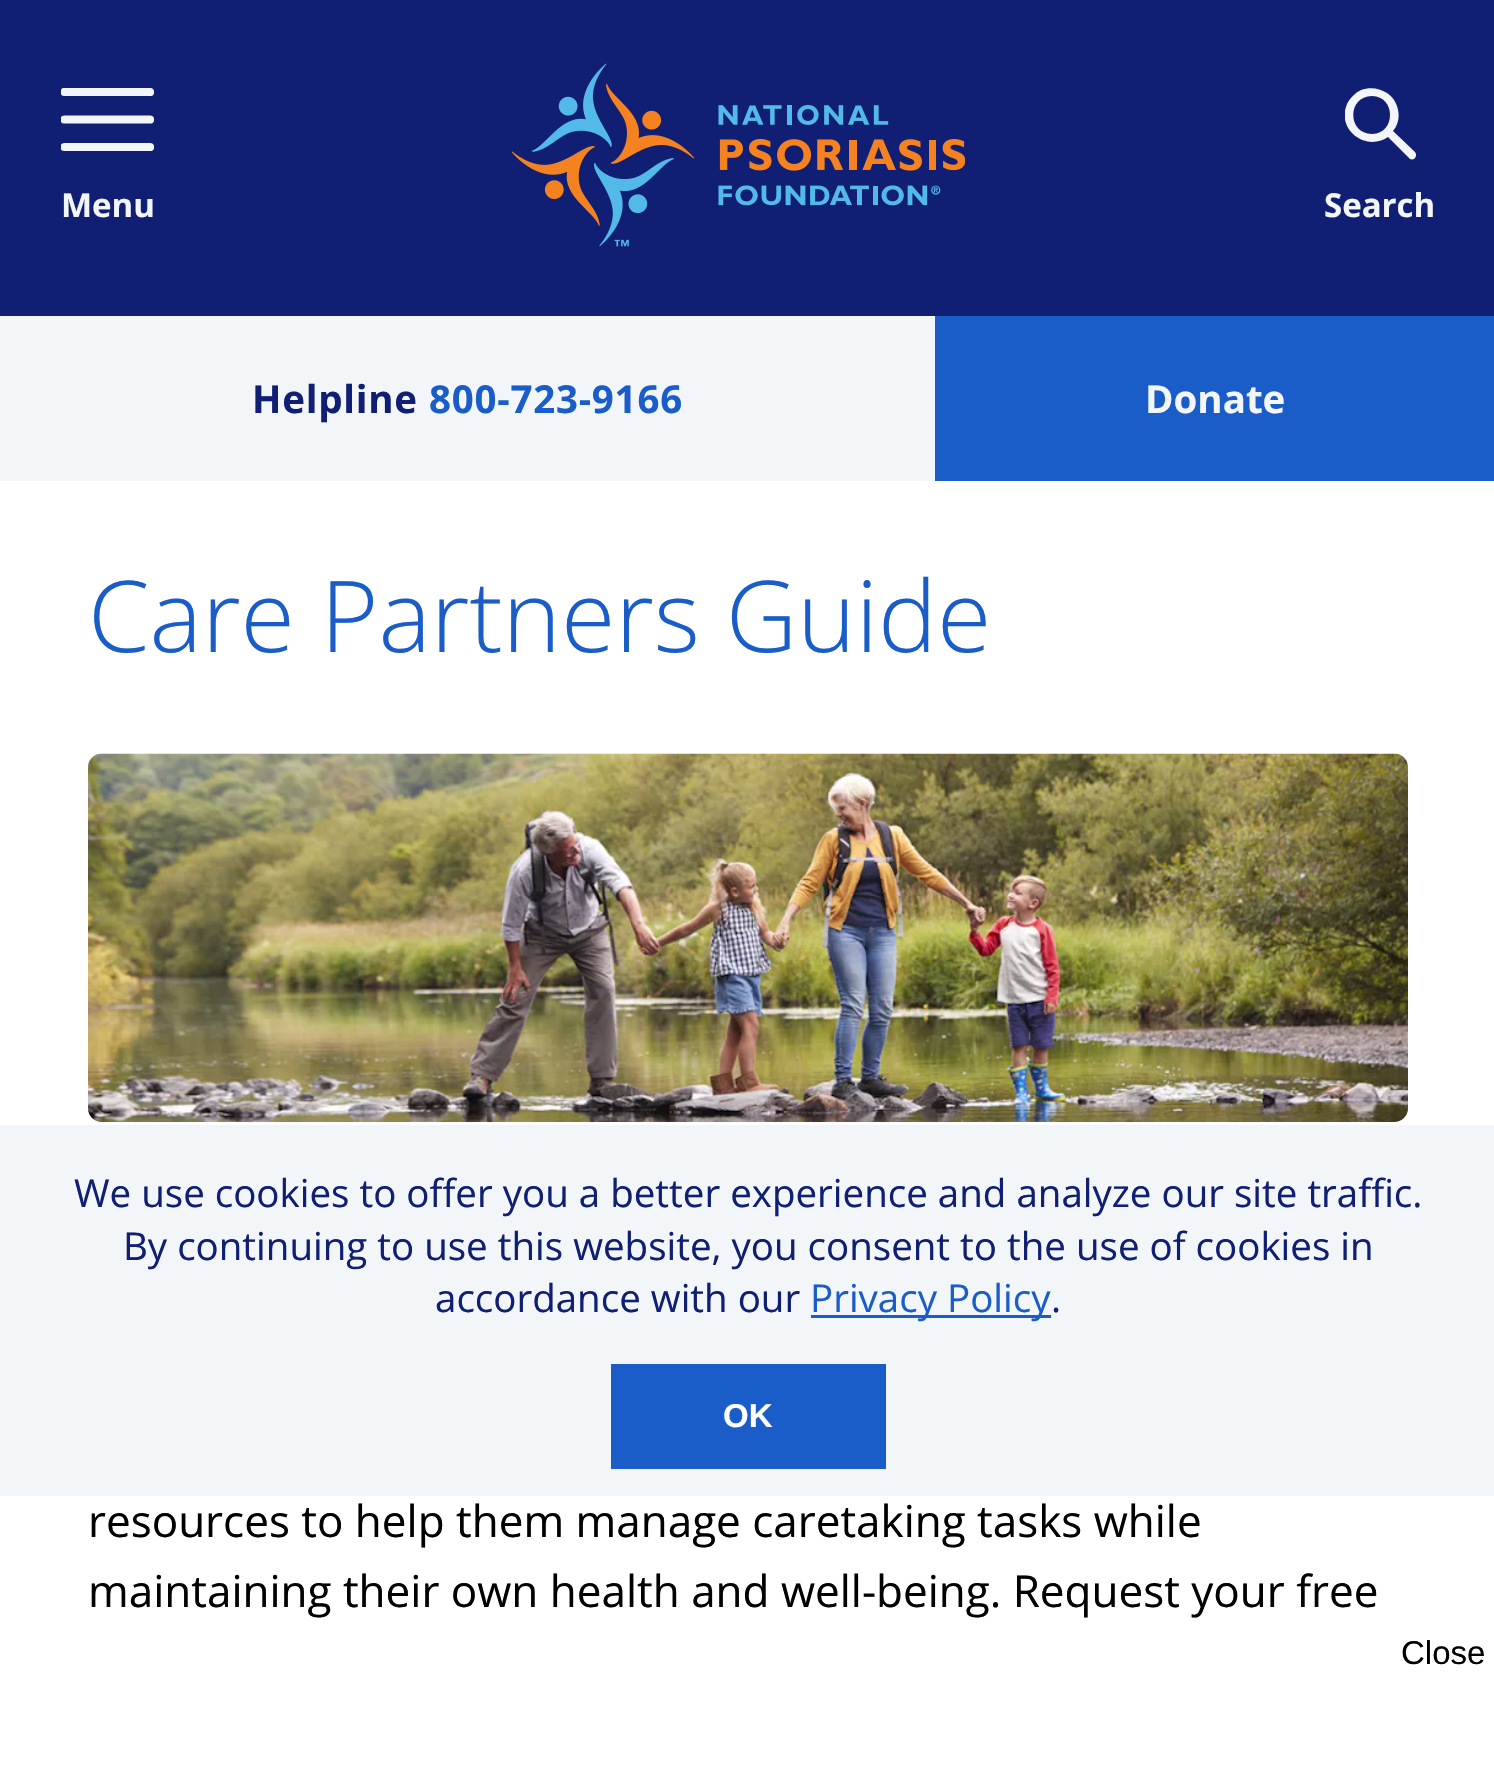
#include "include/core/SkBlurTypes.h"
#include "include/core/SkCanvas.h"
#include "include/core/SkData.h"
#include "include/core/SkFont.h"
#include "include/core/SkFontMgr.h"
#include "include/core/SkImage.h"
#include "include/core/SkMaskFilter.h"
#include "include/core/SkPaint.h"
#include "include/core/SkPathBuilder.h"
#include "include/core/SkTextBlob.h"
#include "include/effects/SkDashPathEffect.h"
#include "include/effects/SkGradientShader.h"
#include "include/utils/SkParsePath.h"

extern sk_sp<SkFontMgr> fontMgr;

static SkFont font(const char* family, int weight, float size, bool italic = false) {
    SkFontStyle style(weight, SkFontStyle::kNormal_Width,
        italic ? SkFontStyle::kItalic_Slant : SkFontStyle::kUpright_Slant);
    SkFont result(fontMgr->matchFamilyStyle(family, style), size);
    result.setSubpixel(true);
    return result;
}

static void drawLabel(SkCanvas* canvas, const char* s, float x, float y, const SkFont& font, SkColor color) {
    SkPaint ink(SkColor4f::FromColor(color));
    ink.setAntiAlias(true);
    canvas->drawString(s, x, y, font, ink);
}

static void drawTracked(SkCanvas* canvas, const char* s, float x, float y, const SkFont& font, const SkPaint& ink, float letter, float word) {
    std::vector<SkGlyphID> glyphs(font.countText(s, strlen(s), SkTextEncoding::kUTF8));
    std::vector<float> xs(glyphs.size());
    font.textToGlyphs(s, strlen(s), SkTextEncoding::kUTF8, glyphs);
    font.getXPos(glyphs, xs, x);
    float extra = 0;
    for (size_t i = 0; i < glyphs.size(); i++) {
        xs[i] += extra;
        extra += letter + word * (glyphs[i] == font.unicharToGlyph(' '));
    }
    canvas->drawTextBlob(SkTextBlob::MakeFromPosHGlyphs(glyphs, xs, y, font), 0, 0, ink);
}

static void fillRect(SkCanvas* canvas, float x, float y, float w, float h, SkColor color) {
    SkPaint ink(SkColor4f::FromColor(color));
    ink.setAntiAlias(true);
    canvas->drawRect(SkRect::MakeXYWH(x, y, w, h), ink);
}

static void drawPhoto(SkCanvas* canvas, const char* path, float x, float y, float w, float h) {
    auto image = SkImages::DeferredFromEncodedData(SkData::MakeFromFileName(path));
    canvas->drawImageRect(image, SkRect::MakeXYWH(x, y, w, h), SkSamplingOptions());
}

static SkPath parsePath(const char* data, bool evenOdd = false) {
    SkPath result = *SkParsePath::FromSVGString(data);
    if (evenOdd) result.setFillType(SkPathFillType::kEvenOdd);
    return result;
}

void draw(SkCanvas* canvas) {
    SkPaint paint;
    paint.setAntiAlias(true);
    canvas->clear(0xFFFFFFFF);
    fillRect(canvas, 0, 0, 1494, 316, 0xFF101F73);
    canvas->save();
    canvas->clipRect(SkRect::MakeXYWH(61, 88, 93, 77));
    paint.setStroke(true);
    paint.setStrokeWidth(8.2f);
    paint.setStrokeCap(SkPaint::kRound_Cap);
    paint.setStrokeJoin(SkPaint::kRound_Join);
    paint.setColor(0xFFF2F6F8);
    canvas->drawPath(parsePath("M64.5 147H150"), paint);
    canvas->drawPath(parsePath("M64.5 119.5H150"), paint);
    canvas->drawPath(parsePath("M64.5 92H150"), paint);
    canvas->restore();
    SkFont font1 = font("Open Sans", 700, 33);
    drawLabel(canvas, "Menu", 61, 217, font1, 0xFFF2F6F8);
    drawPhoto(canvas, "assets/img1.png", 512, 63, 453, 184);
    canvas->save();
    canvas->clipRect(SkRect::MakeXYWH(1345, 88, 71, 72));
    paint.setStroke(false);
    canvas->drawPath(parsePath("M1415 152L1393 131C1403 119 1399 101 1387 93C1379 88 1370 87 1361 90C1355 93 1350 98 1347 104C1336 130 1366 152 1388 137L1410 159C1414 161 1418 156 1415 152ZM1372 134C1347 134 1347 96 1372 96C1396 96 1396 134 1372 134Z"), paint);
    canvas->restore();
    drawLabel(canvas, "Search", 1324, 217, font1, 0xFFF2F6F8);
    fillRect(canvas, 0, 316, 935, 165, 0xFFF2F6F8);
    SkFont font2 = font("Open Sans", 700, 38.5f);
    paint.setColor(0xFF101F73);
    drawTracked(canvas, "Helpline", 252, 413, font2, paint, 0.75f, 0);
    paint.setColor(0xFF1A5DC8);
    drawTracked(canvas, "800-723-9166", 429, 413, font2, paint, 0.75f, 0);
    fillRect(canvas, 935, 316, 559, 165, 0xFF1A5DC8);
    drawLabel(canvas, "Donate", 1145, 413, font2, 0xFFF2F6F8);
    SkFont font3 = font("Open Sans", 300, 99);
    drawLabel(canvas, "Care Partners Guide", 88, 652, font3, 0xFF1A5DC8);
    drawPhoto(canvas, "assets/img2.png", 88, 753, 1320, 369);
    SkFont font4 = font("Open Sans", 400, 44);
    drawLabel(canvas, "resources to help them manage caretaking tasks while", 88, 1537, font4, 0xFF000000);
    drawLabel(canvas, "maintaining their own health and well-being. Request your free", 88, 1607, font4, 0xFF000000);
    fillRect(canvas, 0, 1125, 1494, 371, 0xFFF2F6F8);
    SkFont font5 = font("Open Sans", 400, 38.5f);
    drawLabel(canvas, "We use cookies to offer you a better experience and analyze our site traffic.", 74, 1207, font5, 0xFF101F73);
    drawLabel(canvas, "By continuing to use this website, you consent to the use of cookies in", 123, 1260, font5, 0xFF101F73);
    drawLabel(canvas, "accordance with our", 435, 1312, font5, 0xFF101F73);
    fillRect(canvas, 811, 1315, 240, 3, 0xFF1A5DC8);
    drawLabel(canvas, "Privacy Policy", 810, 1312, font5, 0xFF1A5DC8);
    drawLabel(canvas, ".", 1051, 1312, font5, 0xFF101F73);
    fillRect(canvas, 611, 1364, 275, 105, 0xFF1A5DC8);
    SkFont font6 = font("Liberation Sans", 700, 33);
    drawLabel(canvas, "OK", 723, 1427, font6, 0xFFFFFFFF);
    SkFont font7 = font("Liberation Sans", 400, 33);
    drawLabel(canvas, "Close", 1401, 1664, font7, 0xFF000000);
}
